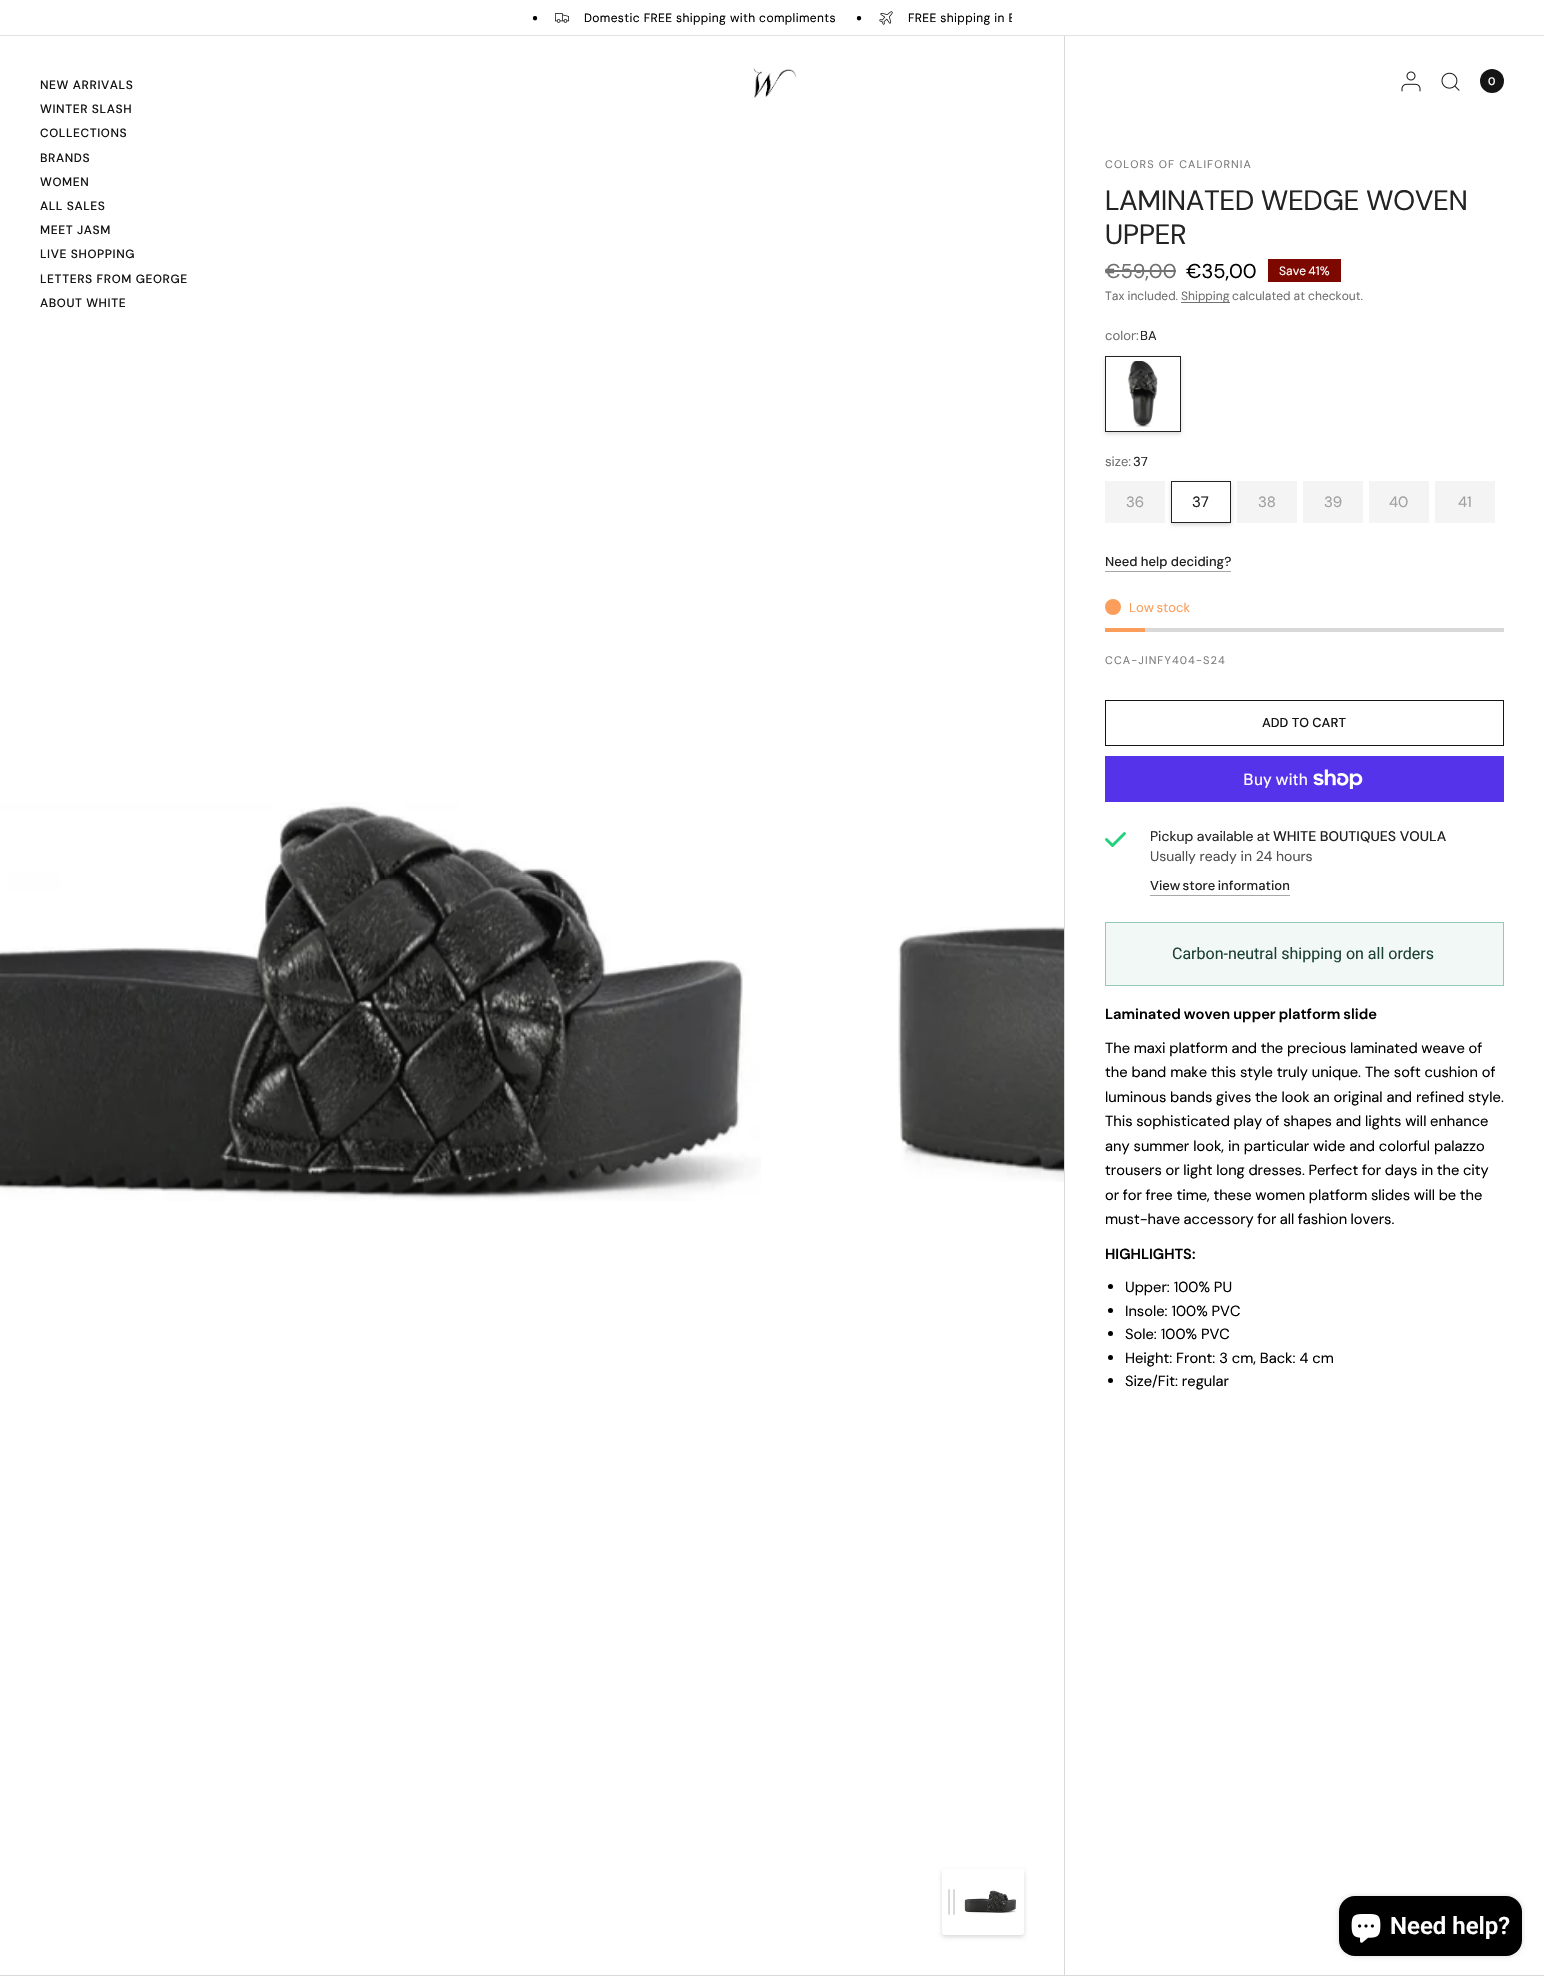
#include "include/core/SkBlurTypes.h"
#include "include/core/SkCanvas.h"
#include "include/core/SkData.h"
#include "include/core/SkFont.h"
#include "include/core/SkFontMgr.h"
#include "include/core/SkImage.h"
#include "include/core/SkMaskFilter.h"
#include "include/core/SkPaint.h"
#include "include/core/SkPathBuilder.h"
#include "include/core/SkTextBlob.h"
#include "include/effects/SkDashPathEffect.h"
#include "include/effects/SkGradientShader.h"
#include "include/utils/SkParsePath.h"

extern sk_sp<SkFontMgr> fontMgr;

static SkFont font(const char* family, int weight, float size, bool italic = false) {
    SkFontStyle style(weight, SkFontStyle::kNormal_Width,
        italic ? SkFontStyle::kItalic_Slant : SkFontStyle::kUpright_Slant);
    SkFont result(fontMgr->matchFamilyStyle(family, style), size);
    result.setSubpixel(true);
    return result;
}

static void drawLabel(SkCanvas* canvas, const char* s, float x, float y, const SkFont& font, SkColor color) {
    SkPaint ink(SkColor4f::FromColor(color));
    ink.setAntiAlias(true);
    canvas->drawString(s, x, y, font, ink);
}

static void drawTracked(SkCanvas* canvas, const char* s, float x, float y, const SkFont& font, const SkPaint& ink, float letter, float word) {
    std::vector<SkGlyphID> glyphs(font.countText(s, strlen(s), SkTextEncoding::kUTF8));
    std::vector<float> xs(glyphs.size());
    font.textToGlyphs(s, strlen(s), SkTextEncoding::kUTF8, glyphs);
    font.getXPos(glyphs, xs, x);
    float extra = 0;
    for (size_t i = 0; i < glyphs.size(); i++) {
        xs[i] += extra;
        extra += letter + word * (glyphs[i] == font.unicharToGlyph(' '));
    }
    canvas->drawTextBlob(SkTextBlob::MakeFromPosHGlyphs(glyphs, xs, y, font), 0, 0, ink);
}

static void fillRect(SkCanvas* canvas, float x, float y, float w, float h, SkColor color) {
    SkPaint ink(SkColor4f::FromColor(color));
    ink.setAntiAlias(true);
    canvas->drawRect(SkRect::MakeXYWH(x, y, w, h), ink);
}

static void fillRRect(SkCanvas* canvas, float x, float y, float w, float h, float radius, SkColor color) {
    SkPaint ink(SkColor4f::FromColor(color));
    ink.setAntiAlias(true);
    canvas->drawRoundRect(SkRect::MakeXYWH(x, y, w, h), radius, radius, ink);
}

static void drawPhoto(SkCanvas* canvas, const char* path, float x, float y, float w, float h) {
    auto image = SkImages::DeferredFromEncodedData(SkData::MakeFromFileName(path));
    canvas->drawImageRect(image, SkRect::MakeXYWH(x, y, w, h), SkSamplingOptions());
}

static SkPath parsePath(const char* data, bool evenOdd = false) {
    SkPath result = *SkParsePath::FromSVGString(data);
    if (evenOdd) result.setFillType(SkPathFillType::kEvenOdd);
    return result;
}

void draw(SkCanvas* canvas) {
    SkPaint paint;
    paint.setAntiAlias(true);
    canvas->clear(0xFFFFFFFF);
    fillRect(canvas, 0, 35, 1544, 1, 0xFFE2E2E2);
    SkFont font1 = font("Liberation Sans", 400, 10);
    paint.setColor(0xFF000000);
    drawTracked(canvas, "●", 532, 21, font1, paint, 0.35f, 0);
    drawPhoto(canvas, "assets/img1.png", 555, 13, 14, 10);
    SkFont font2 = font("DM Sans", 400, 12);
    drawTracked(canvas, "Domestic FREE shipping with compliments", 584, 22, font2, paint, 0.35f, 0);
    drawTracked(canvas, "●", 856, 21, font1, paint, 0.35f, 0);
    drawPhoto(canvas, "assets/img2.png", 879, 11, 14, 14);
    canvas->save();
    canvas->clipRect(SkRect::MakeXYWH(532, 11, 480, 14));
    drawTracked(canvas, "FREE shipping in E", 908, 22, font2, paint, 0.35f, 0);
    canvas->restore();
    SkFont font3 = font("DM Sans", 500, 12);
    paint.setColor(0xFF151515);
    drawTracked(canvas, "NEW ARRIVALS", 40, 89, font3, paint, 0.6f, 0);
    drawTracked(canvas, "WINTER SLASH", 40, 113, font3, paint, 0.6f, 0);
    drawTracked(canvas, "COLLECTIONS", 40, 137, font3, paint, 0.6f, 0);
    drawTracked(canvas, "BRANDS", 40, 162, font3, paint, 0.6f, 0);
    drawTracked(canvas, "WOMEN", 40, 186, font3, paint, 0.6f, 0);
    drawTracked(canvas, "ALL SALES", 40, 210, font3, paint, 0.6f, 0);
    drawTracked(canvas, "MEET JASM", 40, 234, font3, paint, 0.6f, 0);
    drawTracked(canvas, "LIVE SHOPPING", 40, 258, font3, paint, 0.6f, 0);
    drawTracked(canvas, "LETTERS FROM GEORGE", 40, 283, font3, paint, 0.6f, 0);
    drawTracked(canvas, "ABOUT WHITE", 40, 307, font3, paint, 0.6f, 0);
    drawPhoto(canvas, "assets/img3.png", 753, 68, 44, 30);
    drawPhoto(canvas, "assets/img4.png", 1401, 71, 20, 21);
    drawPhoto(canvas, "assets/img5.png", 1441, 72, 19, 19);
    canvas->drawCircle(1492, 81, 12, paint);
    SkFont font4 = font("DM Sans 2", 500, 11);
    drawLabel(canvas, "0", 1488, 85, font4, 0xFFFFFFFF);
    fillRect(canvas, 0, 1975, 1544, 1, 0xFFD9D9D9);
    drawPhoto(canvas, "assets/img6.png", 0, 802, 761, 399);
    drawPhoto(canvas, "assets/img7.png", 898, 926, 166, 256);
    paint.setColor(0x26000000);
    paint.setMaskFilter(SkMaskFilter::MakeBlur(kNormal_SkBlurStyle, 2));
    canvas->drawRoundRect(SkRect::MakeXYWH(942, 1871, 82, 66), 3, 3, paint);
    paint.setMaskFilter(nullptr);
    fillRRect(canvas, 942, 1869, 82, 66, 3, 0xFFFFFFFF);
    fillRRect(canvas, 948, 1889, 2, 26, 1, 0xFFD9D9D9);
    fillRRect(canvas, 953, 1889, 2, 26, 1, 0xFFD9D9D9);
    drawPhoto(canvas, "assets/img8.png", 964, 1890, 53, 24);
    fillRect(canvas, 1064, 36, 1, 1939, 0xFFD9D9D9);
    SkFont font5 = font("DM Sans", 400, 11);
    paint.setColor(0xFF7B7B7B);
    drawTracked(canvas, "COLORS OF CALIFORNIA", 1105, 168, font5, paint, 1.1f, 0);
    SkFont font6 = font("DM Sans 2", 400, 28);
    drawLabel(canvas, "LAMINATED WEDGE WOVEN", 1105, 210, font6, 0xFF232323);
    drawLabel(canvas, "UPPER", 1105, 244, font6, 0xFF232323);
    SkFont font7 = font("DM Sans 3", 400, 20);
    drawLabel(canvas, "€59,00", 1105, 278, font7, 0xFF707070);
    fillRect(canvas, 1105, 270, 71, 2, 0xFF737373);
    drawLabel(canvas, "€35,00", 1186, 278, font7, 0xFF000000);
    fillRect(canvas, 1268, 259, 73, 23, 0xFF7C0800);
    paint.setColor(0xFFFFFFFF);
    drawTracked(canvas, "Save 41%", 1279, 275, font2, paint, 0, -1);
    drawLabel(canvas, "Tax included.", 1105, 300, font2, 0xFF707070);
    fillRect(canvas, 1181, 302, 49, 1, 0xFF707070);
    drawLabel(canvas, "Shipping", 1181, 300, font2, 0xFF707070);
    paint.setColor(0xFF707070);
    drawTracked(canvas, "calculated at checkout.", 1232, 300, font2, paint, 0, -0.25f);
    SkFont font8 = font("DM Sans", 400, 13);
    drawLabel(canvas, "color:", 1105, 340, font8, 0xFF707070);
    drawLabel(canvas, "BA", 1140, 340, font8, 0xFF232323);
    canvas->save();
    canvas->clipPath(parsePath("M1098 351H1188V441H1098ZM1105 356H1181V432H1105Z", true), true);
    paint.setColor(0x26000000);
    paint.setMaskFilter(SkMaskFilter::MakeBlur(kNormal_SkBlurStyle, 2));
    canvas->drawRect(SkRect::MakeXYWH(1105, 358, 76, 76), paint);
    paint.setMaskFilter(nullptr);
    canvas->restore();
    paint.setStroke(true);
    paint.setStrokeWidth(1);
    paint.setColor(0xFF232323);
    canvas->drawRect(SkRect::MakeXYWH(1105.5f, 356.5f, 75, 75), paint);
    drawPhoto(canvas, "assets/img9.png", 1127, 361, 31, 66);
    drawLabel(canvas, "size:", 1105, 466, font8, 0xFF707070);
    drawLabel(canvas, "37", 1133, 466, font8, 0xFF232323);
    fillRect(canvas, 1105, 481, 60, 42, 0xFFF4F4F4);
    SkFont font9 = font("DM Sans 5", 400, 15);
    drawLabel(canvas, "36", 1126, 507, font9, 0xFFA0A0A0);
    fillRect(canvas, 1237, 481, 60, 42, 0xFFF4F4F4);
    canvas->save();
    canvas->clipPath(parsePath("M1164 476H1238V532H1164ZM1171 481H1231V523H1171Z", true), true);
    paint.setStroke(false);
    paint.setColor(0x26000000);
    paint.setMaskFilter(SkMaskFilter::MakeBlur(kNormal_SkBlurStyle, 2));
    canvas->drawRect(SkRect::MakeXYWH(1171, 483, 60, 42), paint);
    paint.setMaskFilter(nullptr);
    canvas->restore();
    paint.setStroke(true);
    paint.setColor(0xFF232323);
    canvas->drawRect(SkRect::MakeXYWH(1171.5f, 481.5f, 59, 41), paint);
    drawLabel(canvas, "37", 1192, 507, font9, 0xFF232323);
    drawLabel(canvas, "38", 1258, 507, font9, 0xFFA0A0A0);
    fillRect(canvas, 1303, 481, 60, 42, 0xFFF4F4F4);
    drawLabel(canvas, "39", 1324, 507, font9, 0xFFA0A0A0);
    fillRect(canvas, 1369, 481, 60, 42, 0xFFF4F4F4);
    drawLabel(canvas, "40", 1389, 507, font9, 0xFFA0A0A0);
    fillRect(canvas, 1435, 481, 60, 42, 0xFFF4F4F4);
    drawLabel(canvas, "41", 1458, 507, font9, 0xFFA0A0A0);
    SkFont font10 = font("DM Sans", 500, 13);
    drawLabel(canvas, "Need help deciding?", 1105, 566, font10, 0xFF232323);
    fillRect(canvas, 1105, 571, 126, 1, 0xFFA7A7A7);
    paint.setStroke(false);
    paint.setColor(0xFFFB9E5B);
    canvas->drawCircle(1113, 607, 8, paint);
    drawTracked(canvas, "Low stock", 1129, 612, font8, paint, 0, -1);
    fillRect(canvas, 1145, 628, 359, 4, 0xFFD9D9D9);
    fillRect(canvas, 1105, 628, 40, 4, 0xFFFB9E5B);
    paint.setColor(0xFF7B7B7B);
    drawTracked(canvas, "CCA-JINFY404-S24", 1105, 664, font5, paint, 1.1f, 0);
    paint.setStroke(true);
    paint.setColor(0xFF151515);
    canvas->drawRect(SkRect::MakeXYWH(1105.5f, 700.5f, 398, 45), paint);
    drawLabel(canvas, "ADD TO CART", 1262, 727, font10, 0xFF151515);
    fillRect(canvas, 1105, 756, 399, 46, 0xFF5433EB);
    SkFont font11 = font("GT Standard", 400, 16);
    drawLabel(canvas, "Buy with", 1243, 785, font11, 0xFFFFFFFF);
    drawPhoto(canvas, "assets/img10.png", 1313, 769, 50, 20);
    paint.setStrokeWidth(3);
    paint.setStrokeCap(SkPaint::kRound_Cap);
    paint.setStrokeJoin(SkPaint::kRound_Join);
    paint.setColor(0xFF21D17D);
    canvas->drawPath(parsePath("M1124.5 833.5L1112.5 845.5L1106.5 839.5"), paint);
    SkFont font12 = font("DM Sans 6", 400, 14);
    paint.setStroke(false);
    paint.setColor(0xFF232323);
    drawTracked(canvas, "Pickup available at", 1150, 841, font12, paint, 0, -0.25f);
    SkFont font13 = font("DM Sans", 500, 14);
    drawLabel(canvas, "WHITE BOUTIQUES VOULA", 1273, 841, font13, 0xFF232323);
    drawLabel(canvas, "Usually ready in 24 hours", 1150, 861, font12, 0xFF4F4F4F);
    drawTracked(canvas, "View store information", 1150, 890, font10, paint, 0, -1);
    fillRect(canvas, 1150, 895, 140, 1, 0xFFA7A7A7);
    paint.setColor(0xFFF1F8F5);
    canvas->drawRect(SkRect::MakeXYWH(1105.5f, 922.5f, 398, 63), paint);
    paint.setStroke(true);
    paint.setStrokeWidth(1);
    paint.setStrokeCap(SkPaint::kButt_Cap);
    paint.setStrokeJoin(SkPaint::kMiter_Join);
    paint.setColor(0xFF95C9B4);
    canvas->drawRect(SkRect::MakeXYWH(1105.5f, 922.5f, 398, 63), paint);
    SkFont font14 = font("Roboto", 400, 16);
    drawLabel(canvas, "Carbon-neutral shipping on all orders", 1172, 959, font14, 0xFF1D4136);
    SkFont font15 = font("DM Sans", 600, 14.7f);
    paint.setStroke(false);
    paint.setColor(0xFF000000);
    drawTracked(canvas, "Laminated woven upper platform slide", 1105, 1019, font15, paint, 0, -0.5f);
    SkFont font16 = font("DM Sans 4", 400, 14.7f);
    drawTracked(canvas, "The maxi platform and the precious laminated weave of", 1105, 1053, font16, paint, 0, -0.25f);
    drawLabel(canvas, "the band make this style truly unique. The soft cushion of", 1105, 1077, font16, 0xFF000000);
    drawTracked(canvas, "luminous bands gives the look an original and refined style.", 1105, 1102, font16, paint, 0, -0.1f);
    drawTracked(canvas, "This sophisticated play of shapes and lights will enhance", 1105, 1126, font16, paint, 0, -0.25f);
    drawLabel(canvas, "any summer look, in particular wide and colorful palazzo", 1105, 1151, font16, 0xFF000000);
    drawTracked(canvas, "trousers or light long dresses. Perfect for days in the city", 1105, 1175, font16, paint, 0, -0.25f);
    drawTracked(canvas, "or for free time, these women platform slides will be the", 1105, 1200, font16, paint, 0, -0.25f);
    drawTracked(canvas, "must-have accessory for all fashion lovers.", 1105, 1224, font16, paint, 0, -0.5f);
    drawLabel(canvas, "HIGHLIGHTS:", 1105, 1259, font15, 0xFF000000);
    canvas->drawCircle(1110.5f, 1286.5f, 2.5f, paint);
    drawLabel(canvas, "Upper: 100% PU", 1125, 1292, font16, 0xFF000000);
    canvas->drawCircle(1110.5f, 1310.5f, 2.5f, paint);
    drawLabel(canvas, "Insole: 100% PVC", 1125, 1316, font16, 0xFF000000);
    canvas->drawCircle(1110.5f, 1333.5f, 2.5f, paint);
    drawLabel(canvas, "Sole: 100% PVC", 1125, 1339, font16, 0xFF000000);
    canvas->drawCircle(1110.5f, 1357.5f, 2.5f, paint);
    drawLabel(canvas, "Height: Front: 3 cm, Back: 4 cm", 1125, 1363, font16, 0xFF000000);
    canvas->drawCircle(1110.5f, 1380.5f, 2.5f, paint);
    drawLabel(canvas, "Size/Fit: regular", 1125, 1386, font16, 0xFF000000);
    paint.setColor(0x26000000);
    paint.setMaskFilter(SkMaskFilter::MakeBlur(kNormal_SkBlurStyle, 2.5f));
    canvas->drawRoundRect(SkRect::MakeXYWH(1339, 1896, 183, 60), 16, 16, paint);
    paint.setMaskFilter(nullptr);
    fillRRect(canvas, 1339, 1896, 183, 60, 16, 0xFF000000);
    drawPhoto(canvas, "assets/img11.png", 1351, 1914, 30, 29);
    SkFont font17 = font("Roboto", 600, 24);
    drawLabel(canvas, "Need help?", 1390, 1934, font17, 0xFFFFFFFF);
}
